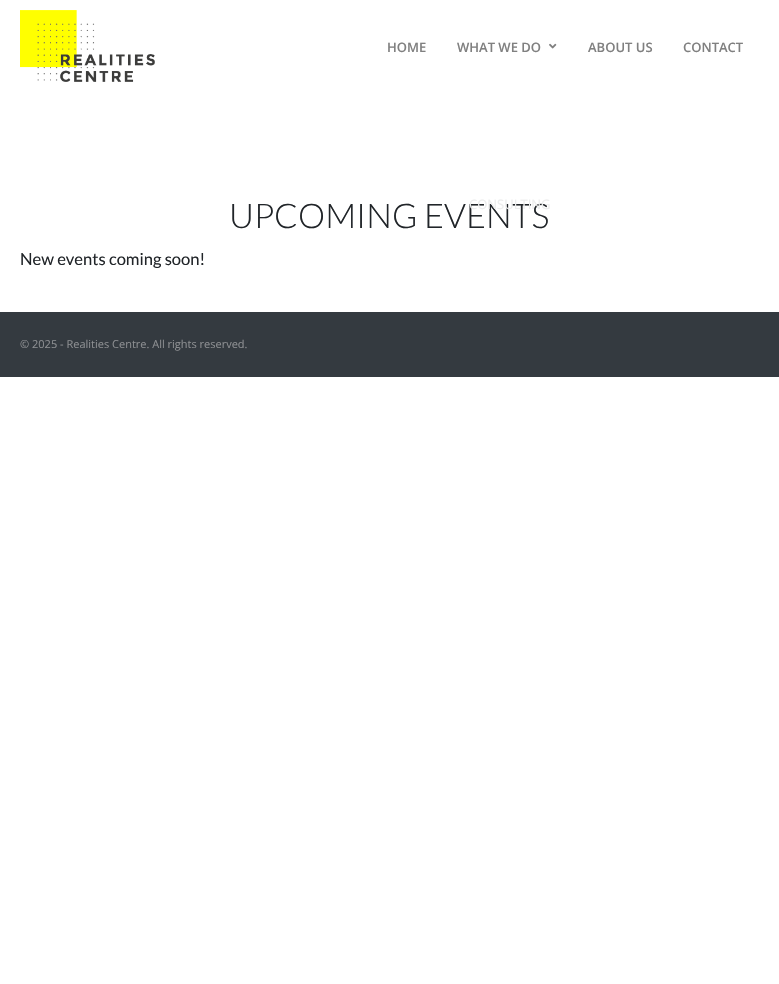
#include "include/core/SkBlurTypes.h"
#include "include/core/SkCanvas.h"
#include "include/core/SkData.h"
#include "include/core/SkFont.h"
#include "include/core/SkFontMgr.h"
#include "include/core/SkImage.h"
#include "include/core/SkMaskFilter.h"
#include "include/core/SkPaint.h"
#include "include/core/SkPathBuilder.h"
#include "include/core/SkTextBlob.h"
#include "include/effects/SkDashPathEffect.h"
#include "include/effects/SkGradientShader.h"
#include "include/utils/SkParsePath.h"

extern sk_sp<SkFontMgr> fontMgr;

static SkFont font(const char* family, int weight, float size, bool italic = false) {
    SkFontStyle style(weight, SkFontStyle::kNormal_Width,
        italic ? SkFontStyle::kItalic_Slant : SkFontStyle::kUpright_Slant);
    SkFont result(fontMgr->matchFamilyStyle(family, style), size);
    result.setSubpixel(true);
    return result;
}

static void drawLabel(SkCanvas* canvas, const char* s, float x, float y, const SkFont& font, SkColor color) {
    SkPaint ink(SkColor4f::FromColor(color));
    ink.setAntiAlias(true);
    canvas->drawString(s, x, y, font, ink);
}

static void fillRect(SkCanvas* canvas, float x, float y, float w, float h, SkColor color) {
    SkPaint ink(SkColor4f::FromColor(color));
    ink.setAntiAlias(true);
    canvas->drawRect(SkRect::MakeXYWH(x, y, w, h), ink);
}

static void drawPhoto(SkCanvas* canvas, const char* path, float x, float y, float w, float h) {
    auto image = SkImages::DeferredFromEncodedData(SkData::MakeFromFileName(path));
    canvas->drawImageRect(image, SkRect::MakeXYWH(x, y, w, h), SkSamplingOptions());
}

void draw(SkCanvas* canvas) {
    SkPaint paint;
    paint.setAntiAlias(true);
    canvas->clear(0xFFFFFFFF);
    drawPhoto(canvas, "assets/img1.png", 20, 10, 135, 72);
    SkFont font1 = font("Open Sans", 600, 13);
    drawLabel(canvas, "HOME", 387, 52, font1, 0xFF808080);
    drawLabel(canvas, "WHAT WE DO", 457, 52, font1, 0xFF808080);
    drawPhoto(canvas, "assets/img2.png", 549, 43, 8, 6);
    SkFont font2 = font("Lato", 300, 34);
    drawLabel(canvas, "UPCOMING EVENTS", 229, 228, font2, 0xFF212529);
    SkFont font3 = font("Open Sans", 400, 13);
    drawLabel(canvas, "CONSULTING", 469, 209, font3, 0xFFECEDED);
    drawLabel(canvas, "ABOUT US", 588, 52, font1, 0xFF808080);
    drawLabel(canvas, "CONTACT", 683, 52, font1, 0xFF808080);
    SkFont font4 = font("Lato", 400, 16.6f);
    drawLabel(canvas, "New events coming soon!", 20, 265, font4, 0xFF212529);
    fillRect(canvas, 0, 312, 779, 65, 0xFF343A40);
    SkFont font5 = font("Open Sans", 400, 11);
    drawLabel(canvas, "© 2025 - Realities Centre. All rights reserved.", 20, 348, font5, 0xFF8C8E91);
}
